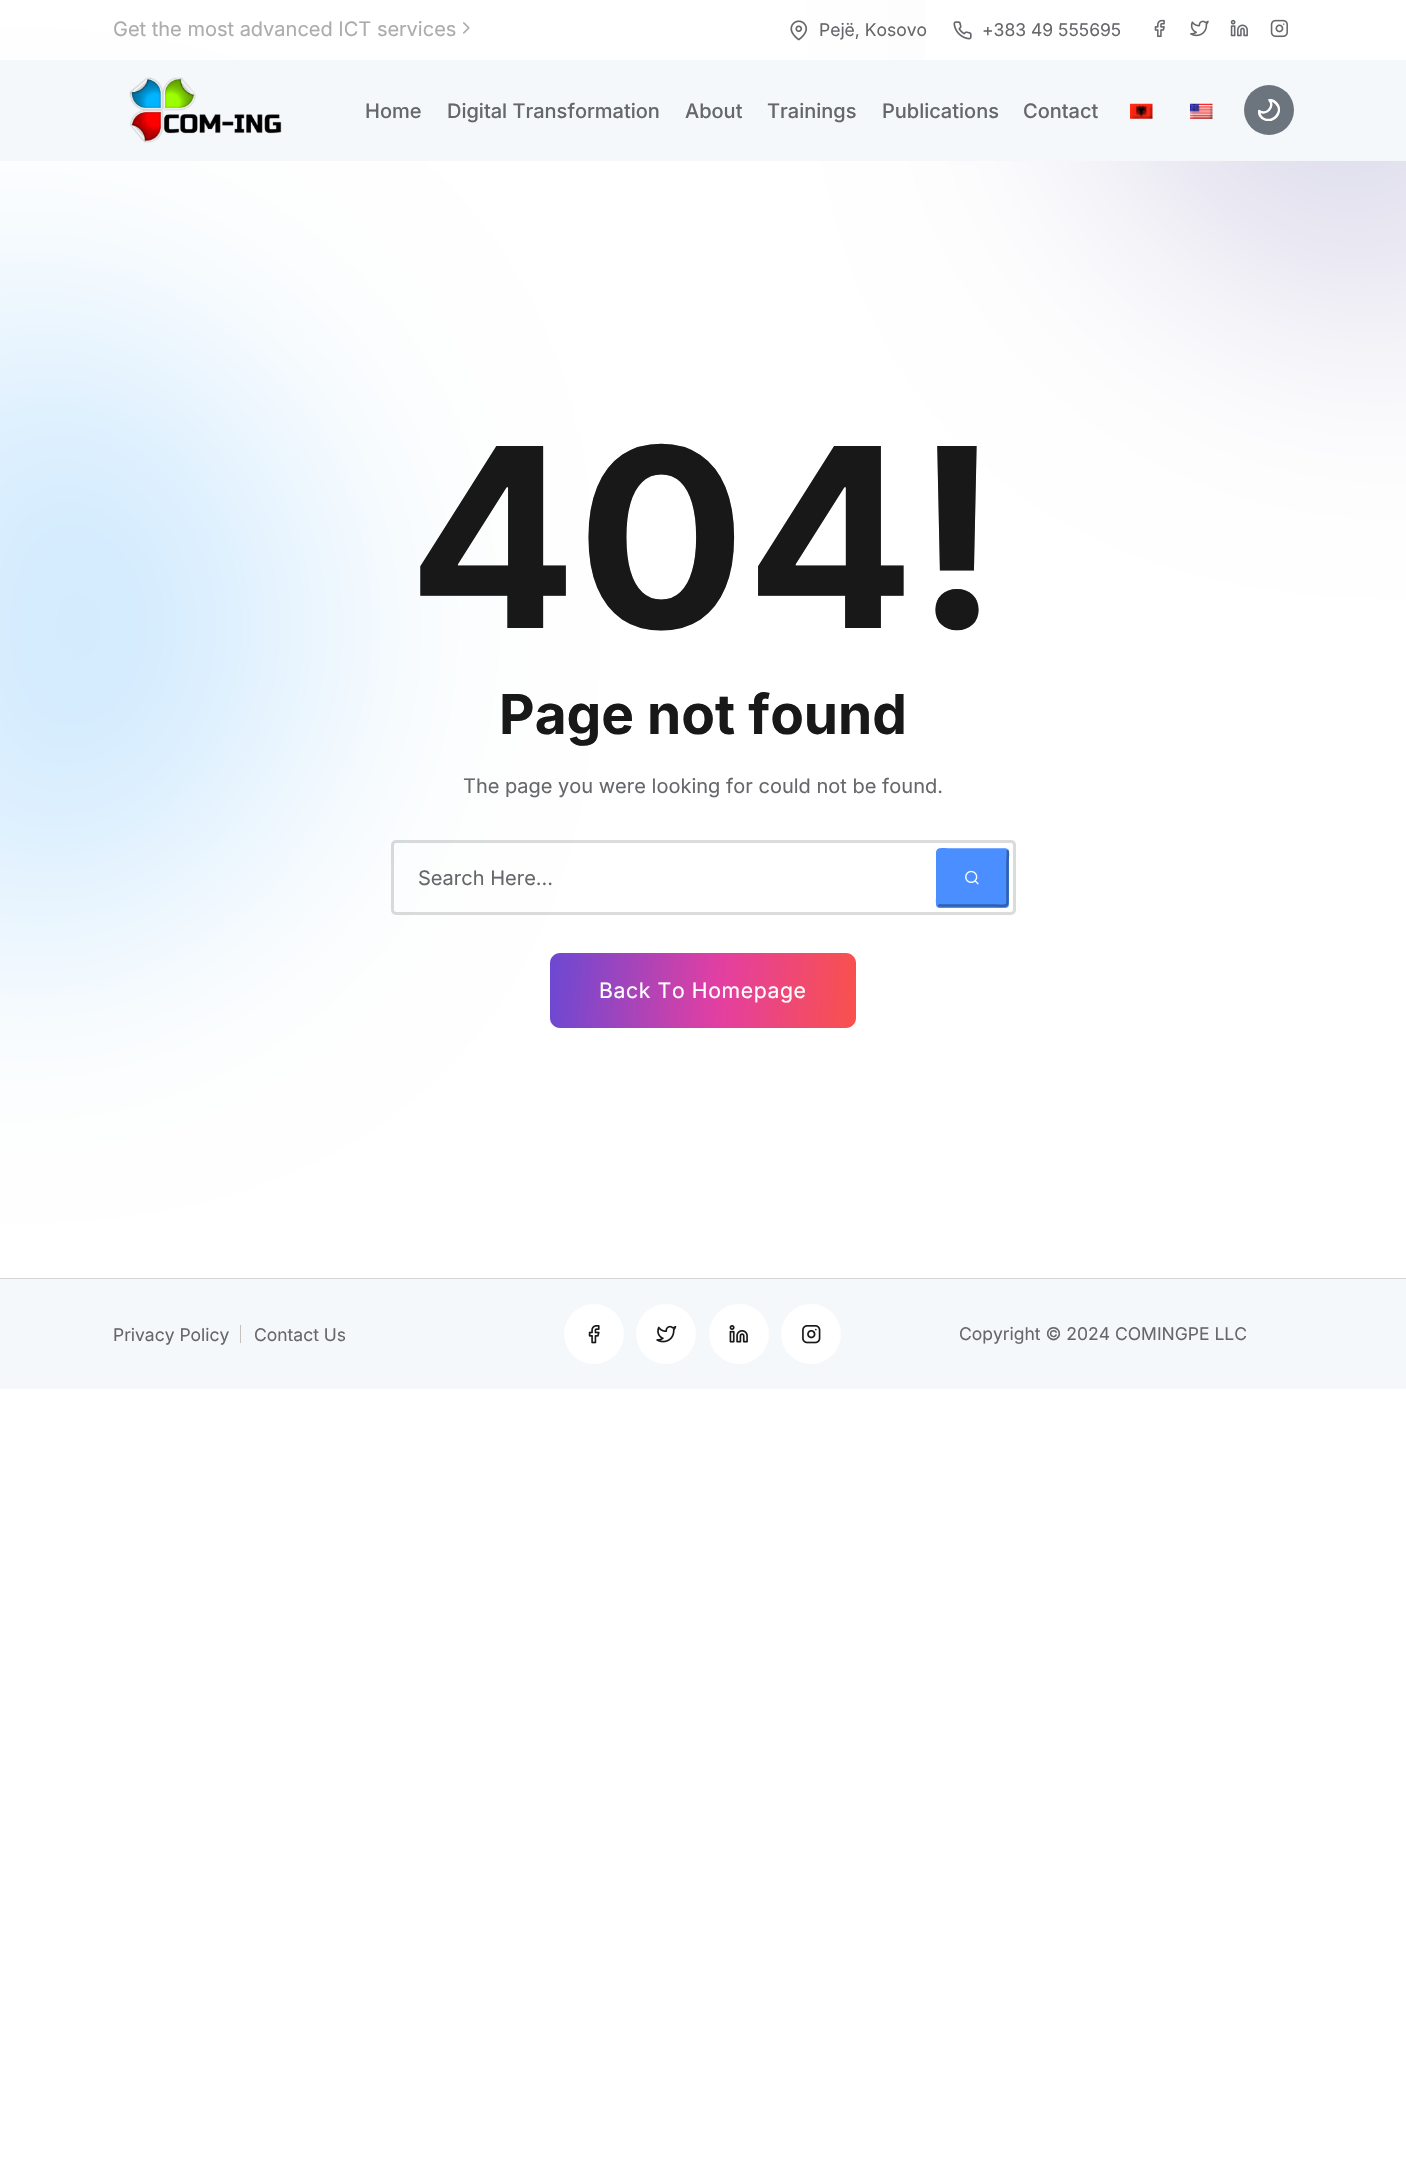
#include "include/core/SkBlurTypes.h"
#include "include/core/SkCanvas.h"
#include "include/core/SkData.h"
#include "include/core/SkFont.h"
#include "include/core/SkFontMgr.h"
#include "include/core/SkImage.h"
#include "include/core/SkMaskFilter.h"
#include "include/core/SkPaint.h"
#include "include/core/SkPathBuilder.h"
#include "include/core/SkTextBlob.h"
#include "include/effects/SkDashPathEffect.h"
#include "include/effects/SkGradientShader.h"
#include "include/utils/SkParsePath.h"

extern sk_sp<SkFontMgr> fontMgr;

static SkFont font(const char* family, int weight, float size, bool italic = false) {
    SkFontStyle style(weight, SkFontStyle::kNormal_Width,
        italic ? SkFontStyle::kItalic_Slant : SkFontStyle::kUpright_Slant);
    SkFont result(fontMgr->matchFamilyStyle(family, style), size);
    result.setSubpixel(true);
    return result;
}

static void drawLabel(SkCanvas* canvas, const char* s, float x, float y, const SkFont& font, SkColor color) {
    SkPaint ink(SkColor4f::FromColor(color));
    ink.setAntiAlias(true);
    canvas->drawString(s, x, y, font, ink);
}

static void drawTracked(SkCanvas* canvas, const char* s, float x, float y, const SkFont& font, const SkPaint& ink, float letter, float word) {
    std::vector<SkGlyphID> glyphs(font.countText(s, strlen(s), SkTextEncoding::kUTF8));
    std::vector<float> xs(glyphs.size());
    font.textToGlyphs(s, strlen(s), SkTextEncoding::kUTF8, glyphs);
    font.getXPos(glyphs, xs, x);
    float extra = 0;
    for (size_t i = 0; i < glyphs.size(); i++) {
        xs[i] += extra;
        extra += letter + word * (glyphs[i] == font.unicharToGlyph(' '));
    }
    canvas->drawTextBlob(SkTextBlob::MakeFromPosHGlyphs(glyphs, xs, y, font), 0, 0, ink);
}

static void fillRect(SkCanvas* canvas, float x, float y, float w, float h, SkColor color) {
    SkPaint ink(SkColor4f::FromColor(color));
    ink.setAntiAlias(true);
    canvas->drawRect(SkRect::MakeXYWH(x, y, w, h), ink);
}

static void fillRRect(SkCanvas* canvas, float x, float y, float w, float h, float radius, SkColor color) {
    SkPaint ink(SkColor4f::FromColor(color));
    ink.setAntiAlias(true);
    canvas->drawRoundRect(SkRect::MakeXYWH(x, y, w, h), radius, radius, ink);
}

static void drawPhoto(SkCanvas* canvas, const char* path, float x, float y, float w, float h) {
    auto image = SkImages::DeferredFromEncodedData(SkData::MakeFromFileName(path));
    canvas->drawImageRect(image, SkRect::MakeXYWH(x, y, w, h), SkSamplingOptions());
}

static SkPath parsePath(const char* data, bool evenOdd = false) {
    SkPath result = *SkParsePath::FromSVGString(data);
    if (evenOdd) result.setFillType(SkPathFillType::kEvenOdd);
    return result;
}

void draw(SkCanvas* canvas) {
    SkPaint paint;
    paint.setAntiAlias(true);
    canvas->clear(0xFFFFFFFF);
    paint.setColor(0xFFD0EAFE);
    paint.setMaskFilter(SkMaskFilter::MakeBlur(kNormal_SkBlurStyle, 125));
    canvas->drawRoundRect(SkRect::MakeXYWH(-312, 313, 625, 625), 312.5f, 312.5f, paint);
    paint.setMaskFilter(nullptr);
    paint.setColor(0xFFDAD8EA);
    paint.setMaskFilter(SkMaskFilter::MakeBlur(kNormal_SkBlurStyle, 125));
    canvas->drawRoundRect(SkRect::MakeXYWH(1094, -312, 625, 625), 312.5f, 312.5f, paint);
    paint.setMaskFilter(nullptr);
    fillRect(canvas, 925, 0, 481, 60, 0xFFFFFFFF);
    SkFont font1 = font("Inter", 400, 20);
    drawLabel(canvas, "Get the most advanced ICT services", 113, 36, font1, 0xFFACACAC);
    drawPhoto(canvas, "assets/img1.png", 463, 22, 7, 12);
    drawPhoto(canvas, "assets/img2.png", 790, 20, 18, 21);
    SkFont font2 = font("Inter", 400, 17.5f);
    drawLabel(canvas, "Pejë, Kosovo", 819, 36, font2, 0xFF65676B);
    drawPhoto(canvas, "assets/img3.png", 953, 21, 19, 19);
    drawLabel(canvas, "+383 49 555695", 982, 36, font2, 0xFF65676B);
    drawPhoto(canvas, "assets/img4.png", 1154, 19, 11, 19);
    drawPhoto(canvas, "assets/img5.png", 1190, 20, 19, 17);
    drawPhoto(canvas, "assets/img6.png", 1230, 19, 18, 18);
    drawPhoto(canvas, "assets/img7.png", 1270, 19, 18, 19);
    fillRect(canvas, 0, 60, 1406, 101, 0xFFF5F8FA);
    drawPhoto(canvas, "assets/img8.png", 129, 77, 153, 66);
    SkFont font3 = font("Inter", 500, 20);
    drawLabel(canvas, "Home", 365, 118, font3, 0xFF65676B);
    drawLabel(canvas, "Digital Transformation", 447, 118, font3, 0xFF65676B);
    drawLabel(canvas, "About", 685, 118, font3, 0xFF65676B);
    drawLabel(canvas, "Trainings", 767, 118, font3, 0xFF65676B);
    drawLabel(canvas, "Publications", 882, 118, font3, 0xFF65676B);
    drawLabel(canvas, "Contact", 1023, 118, font3, 0xFF65676B);
    drawPhoto(canvas, "assets/img9.png", 1130, 103, 23, 16);
    drawPhoto(canvas, "assets/img10.png", 1190, 103, 23, 16);
    paint.setColor(0xFF6C757D);
    canvas->drawCircle(1269, 110, 25, paint);
    canvas->save();
    canvas->clipRect(SkRect::MakeXYWH(1258, 99, 22, 22));
    paint.setStroke(true);
    paint.setStrokeWidth(2.5f);
    paint.setStrokeCap(SkPaint::kRound_Cap);
    paint.setStrokeJoin(SkPaint::kRound_Join);
    paint.setColor(0xFFFFFFFF);
    canvas->drawPath(parsePath("M1269.5 100C1272 100 1274.5 101.5 1276 103C1284 111 1274 124 1264 119C1261 117.5 1259 114 1259 111C1266 116 1275 107 1269.5 100Z"), paint);
    canvas->restore();
    SkFont font4 = font("Inter", 700, 250);
    drawLabel(canvas, "404!", 408, 628, font4, 0xFF181818);
    SkFont font5 = font("Inter", 700, 55);
    drawLabel(canvas, "Page not found", 499, 734, font5, 0xFF181818);
    drawLabel(canvas, "The page you were looking for could not be found.", 463, 793, font1, 0xFF65676B);
    paint.setStrokeWidth(3);
    paint.setStrokeCap(SkPaint::kButt_Cap);
    paint.setStrokeJoin(SkPaint::kMiter_Join);
    paint.setColor(0x24000000);
    canvas->drawRoundRect(SkRect::MakeXYWH(392.5f, 841.5f, 622, 72), 3.5f, 3.5f, paint);
    drawLabel(canvas, "Search Here...", 418, 885, font1, 0xFF65676B);
    fillRRect(canvas, 936, 849, 73, 59, 4, 0xFF4A8EFF);
    paint.setStrokeWidth(2.5f);
    paint.setColor(0xFF315FAA);
    canvas->drawPath(parsePath("M1007 850C1009 852.5 1007.5 857 1007.5 860.5V894.5C1007.5 908.5 1009 905.5 994 905.5H940L938 905"), paint);
    paint.setColor(0xFF4A8EFF);
    canvas->drawPath(parsePath("M938 905C936 902.5 937.5 898 937.5 894.5V860.5C937.5 846.5 936 849.5 951 849.5H1005L1007 850"), paint);
    drawPhoto(canvas, "assets/img11.png", 965, 870, 14, 15);
    canvas->save();
    canvas->clipPath(parsePath("M560 953H846C851.5 953 856 957.5 856 963V1018C856 1023.5 851.5 1028 846 1028H560C554.5 1028 550 1023.5 550 1018V963C550 957.5 554.5 953 560 953Z"), true);
    paint.setStroke(false);
    {
        const SkColor colors[] = {0xFF059DFF, 0xFF6549D5, 0xFFE33FA1, 0xFFFB5343};
        const float stops[] = {0.15f, 0.45f, 0.75f, 1};
        const SkPoint ends[] = {{266, 894}, {870, 946}};
        paint.setShader(SkGradientShader::MakeLinear(ends, colors, stops, 4, SkTileMode::kClamp));
        paint.setAlpha(255);
    }
    canvas->drawRect(SkRect::MakeXYWH(550, 953, 306, 2), paint);
    {
        const SkColor colors[] = {0xFF059DFF, 0xFF6549D5, 0xFFE33FA1, 0xFFFB5343};
        const float stops[] = {0.15f, 0.45f, 0.75f, 1};
        const SkPoint ends[] = {{266, 964}, {870, 1016}};
        paint.setShader(SkGradientShader::MakeLinear(ends, colors, stops, 4, SkTileMode::kClamp));
        paint.setAlpha(255);
    }
    canvas->drawRect(SkRect::MakeXYWH(550, 955, 306, 70), paint);
    {
        const SkColor colors[] = {0xFF059DFF, 0xFF6549D5, 0xFFE33FA1, 0xFFFB5343};
        const float stops[] = {0.15f, 0.45f, 0.75f, 1};
        const SkPoint ends[] = {{266, 1034}, {870, 1086}};
        paint.setShader(SkGradientShader::MakeLinear(ends, colors, stops, 4, SkTileMode::kClamp));
        paint.setAlpha(255);
    }
    canvas->drawRect(SkRect::MakeXYWH(550, 1025, 306, 3), paint);
    canvas->restore();
    SkFont font6 = font("Inter", 400, 21.25f);
    paint.setShader(nullptr);
    paint.setColor(0xFFFFFFFF);
    drawTracked(canvas, "Back To Homepage", 599, 998, font6, paint, 0.6f, 0);
    fillRect(canvas, 0, 1279, 1406, 110, 0xFFF5F8FA);
    fillRect(canvas, 0, 1278, 1406, 1, 0xFFD3D5D7);
    drawLabel(canvas, "Privacy Policy", 113, 1341, font2, 0xFF65676B);
    fillRect(canvas, 240, 1325, 1, 18, 0xFFC5C1C1);
    drawLabel(canvas, "Contact Us", 254, 1341, font2, 0xFF65676B);
    canvas->drawCircle(594, 1334, 30, paint);
    drawPhoto(canvas, "assets/img12.png", 588, 1325, 12, 19);
    canvas->drawCircle(666, 1334, 30, paint);
    drawPhoto(canvas, "assets/img13.png", 656, 1325, 21, 18);
    canvas->drawCircle(739, 1334, 30, paint);
    drawPhoto(canvas, "assets/img14.png", 729, 1325, 19, 18);
    canvas->drawCircle(811, 1334, 30, paint);
    drawPhoto(canvas, "assets/img15.png", 802, 1325, 19, 19);
    drawLabel(canvas, "Copyright © 2024 COMINGPE LLC", 959, 1340, font2, 0xFF65676B);
}
